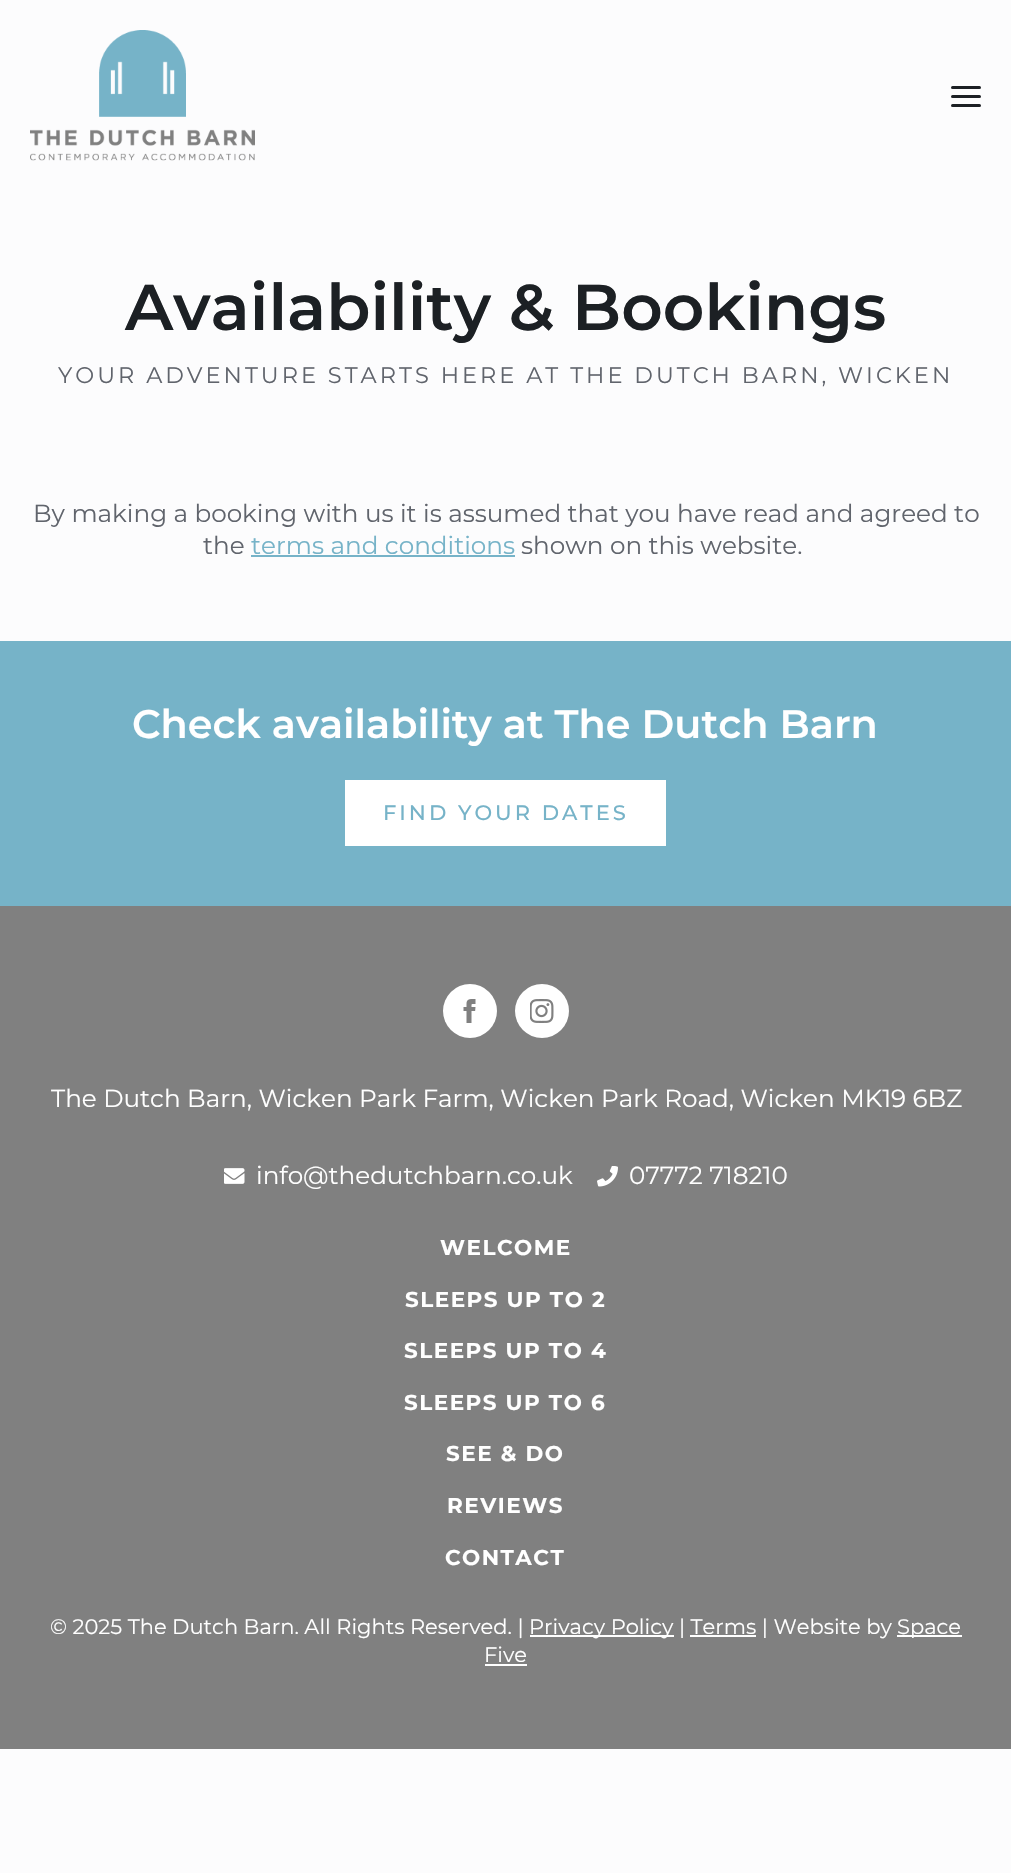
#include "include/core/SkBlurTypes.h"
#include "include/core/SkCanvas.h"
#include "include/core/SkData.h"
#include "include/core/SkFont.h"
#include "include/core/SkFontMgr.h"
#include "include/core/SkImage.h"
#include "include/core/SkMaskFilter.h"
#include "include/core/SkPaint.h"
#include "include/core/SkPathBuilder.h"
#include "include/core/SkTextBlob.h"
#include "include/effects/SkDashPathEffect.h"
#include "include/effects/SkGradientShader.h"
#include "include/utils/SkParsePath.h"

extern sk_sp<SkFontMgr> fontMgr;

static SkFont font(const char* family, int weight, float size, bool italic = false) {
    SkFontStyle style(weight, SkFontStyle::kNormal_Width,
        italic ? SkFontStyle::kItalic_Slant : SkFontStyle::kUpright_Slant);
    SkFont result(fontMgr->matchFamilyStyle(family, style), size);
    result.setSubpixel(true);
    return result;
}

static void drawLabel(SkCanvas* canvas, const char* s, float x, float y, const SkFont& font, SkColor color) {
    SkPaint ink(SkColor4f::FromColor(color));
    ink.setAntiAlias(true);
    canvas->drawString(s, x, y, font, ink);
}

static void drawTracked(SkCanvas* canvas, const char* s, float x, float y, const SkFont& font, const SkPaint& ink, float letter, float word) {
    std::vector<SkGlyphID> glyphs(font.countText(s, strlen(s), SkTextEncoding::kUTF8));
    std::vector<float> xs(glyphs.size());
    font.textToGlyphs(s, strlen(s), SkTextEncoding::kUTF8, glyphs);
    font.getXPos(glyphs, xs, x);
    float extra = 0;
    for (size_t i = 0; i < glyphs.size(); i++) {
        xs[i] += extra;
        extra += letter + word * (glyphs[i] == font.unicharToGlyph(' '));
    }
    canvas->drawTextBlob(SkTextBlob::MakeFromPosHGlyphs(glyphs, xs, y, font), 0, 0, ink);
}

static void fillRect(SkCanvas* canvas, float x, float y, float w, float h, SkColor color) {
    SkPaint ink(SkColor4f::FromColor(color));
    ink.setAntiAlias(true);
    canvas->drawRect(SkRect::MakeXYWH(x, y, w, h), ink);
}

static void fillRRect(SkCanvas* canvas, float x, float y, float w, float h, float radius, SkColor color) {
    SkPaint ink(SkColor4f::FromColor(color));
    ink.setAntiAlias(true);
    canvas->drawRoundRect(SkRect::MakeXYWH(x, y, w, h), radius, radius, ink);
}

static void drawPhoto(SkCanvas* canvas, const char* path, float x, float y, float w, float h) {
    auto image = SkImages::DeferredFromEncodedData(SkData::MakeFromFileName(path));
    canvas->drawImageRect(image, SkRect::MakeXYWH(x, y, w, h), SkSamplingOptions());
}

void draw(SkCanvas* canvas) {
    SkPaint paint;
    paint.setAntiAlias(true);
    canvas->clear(0xFFFCFCFD);
    drawPhoto(canvas, "assets/img1.png", 30, 30, 225, 131);
    fillRRect(canvas, 951, 95, 30, 3, 1.5f, 0xFF1C2024);
    fillRRect(canvas, 951, 86, 30, 3, 1.5f, 0xFF1C2024);
    fillRRect(canvas, 951, 104, 30, 3, 1.5f, 0xFF1C2024);
    SkFont font1 = font("Montserrat", 600, 64.5f);
    drawLabel(canvas, "Availability & Bookings", 125, 330, font1, 0xFF1C2024);
    SkFont font2 = font("Montserrat", 400, 22.5f);
    paint.setColor(0xFF60646C);
    drawTracked(canvas, "YOUR ADVENTURE STARTS HERE AT THE DUTCH BARN, WICKEN", 58, 383, font2, paint, 3, 0);
    SkFont font3 = font("Montserrat", 400, 24.65f);
    drawLabel(canvas, "By making a booking with us it is assumed that you have read and agreed to", 33, 522, font3, 0xFF60646C);
    drawLabel(canvas, "the", 203, 554, font3, 0xFF60646C);
    drawLabel(canvas, "terms and conditions", 251, 554, font3, 0xFF76B3C8);
    fillRect(canvas, 251, 555, 264, 2, 0xFF76B3C8);
    drawLabel(canvas, "shown on this website.", 521, 554, font3, 0xFF60646C);
    fillRect(canvas, 0, 641, 1011, 265, 0xFF76B3C8);
    SkFont font4 = font("Montserrat", 600, 39.75f);
    drawLabel(canvas, "Check availability at The Dutch Barn", 132, 738, font4, 0xFFFFFFFF);
    fillRect(canvas, 345, 780, 321, 66, 0xFFFFFFFF);
    SkFont font5 = font("Montserrat", 500, 21);
    paint.setColor(0xFF76B3C8);
    drawTracked(canvas, "FIND YOUR DATES", 383, 820, font5, paint, 3, 0);
    fillRect(canvas, 0, 906, 1011, 843, 0xFF808080);
    paint.setColor(0xFFFFFFFF);
    canvas->drawCircle(470, 1011, 27, paint);
    drawPhoto(canvas, "assets/img2.png", 463, 999, 13, 24);
    canvas->drawCircle(542, 1011, 27, paint);
    drawPhoto(canvas, "assets/img3.png", 530, 999, 24, 24);
    drawLabel(canvas, "The Dutch Barn, Wicken Park Farm, Wicken Park Road, Wicken MK19 6BZ", 51, 1107, font3, 0xFFFFFFFF);
    drawPhoto(canvas, "assets/img4.png", 224, 1168, 21, 16);
    drawLabel(canvas, "info@thedutchbarn.co.uk", 256, 1184, font3, 0xFFFFFFFF);
    drawPhoto(canvas, "assets/img5.png", 597, 1166, 21, 21);
    drawLabel(canvas, "07772 718210", 629, 1184, font3, 0xFFFFFFFF);
    SkFont font6 = font("Montserrat", 700, 21.5f);
    drawTracked(canvas, "WELCOME", 440, 1255, font6, paint, 1.5f, 0);
    drawTracked(canvas, "SLEEPS UP TO 2", 405, 1307, font6, paint, 1.5f, 0);
    drawTracked(canvas, "SLEEPS UP TO 4", 404, 1358, font6, paint, 1.5f, 0);
    drawTracked(canvas, "SLEEPS UP TO 6", 404, 1410, font6, paint, 1.5f, 0);
    drawTracked(canvas, "SEE & DO", 446, 1461, font6, paint, 1.5f, 0);
    drawTracked(canvas, "REVIEWS", 447, 1513, font6, paint, 1.5f, 0);
    drawTracked(canvas, "CONTACT", 445, 1565, font6, paint, 1.5f, 0);
    SkFont font7 = font("Montserrat", 400, 21);
    drawLabel(canvas, "© 2025 The Dutch Barn. All Rights Reserved. |", 50, 1634, font7, 0xFFFFFFFF);
    fillRect(canvas, 530, 1635, 144, 2, 0xFFFFFFFF);
    drawLabel(canvas, "Privacy Policy | Terms | Website by", 529, 1634, font7, 0xFFFFFFFF);
    fillRect(canvas, 897, 1635, 65, 2, 0xFFFFFFFF);
    drawLabel(canvas, "Space", 897, 1634, font7, 0xFFFFFFFF);
    fillRect(canvas, 690, 1635, 66, 2, 0xFFFFFFFF);
    drawLabel(canvas, "Five", 484, 1662, font7, 0xFFFFFFFF);
    fillRect(canvas, 485, 1664, 42, 2, 0xFFFFFFFF);
}
